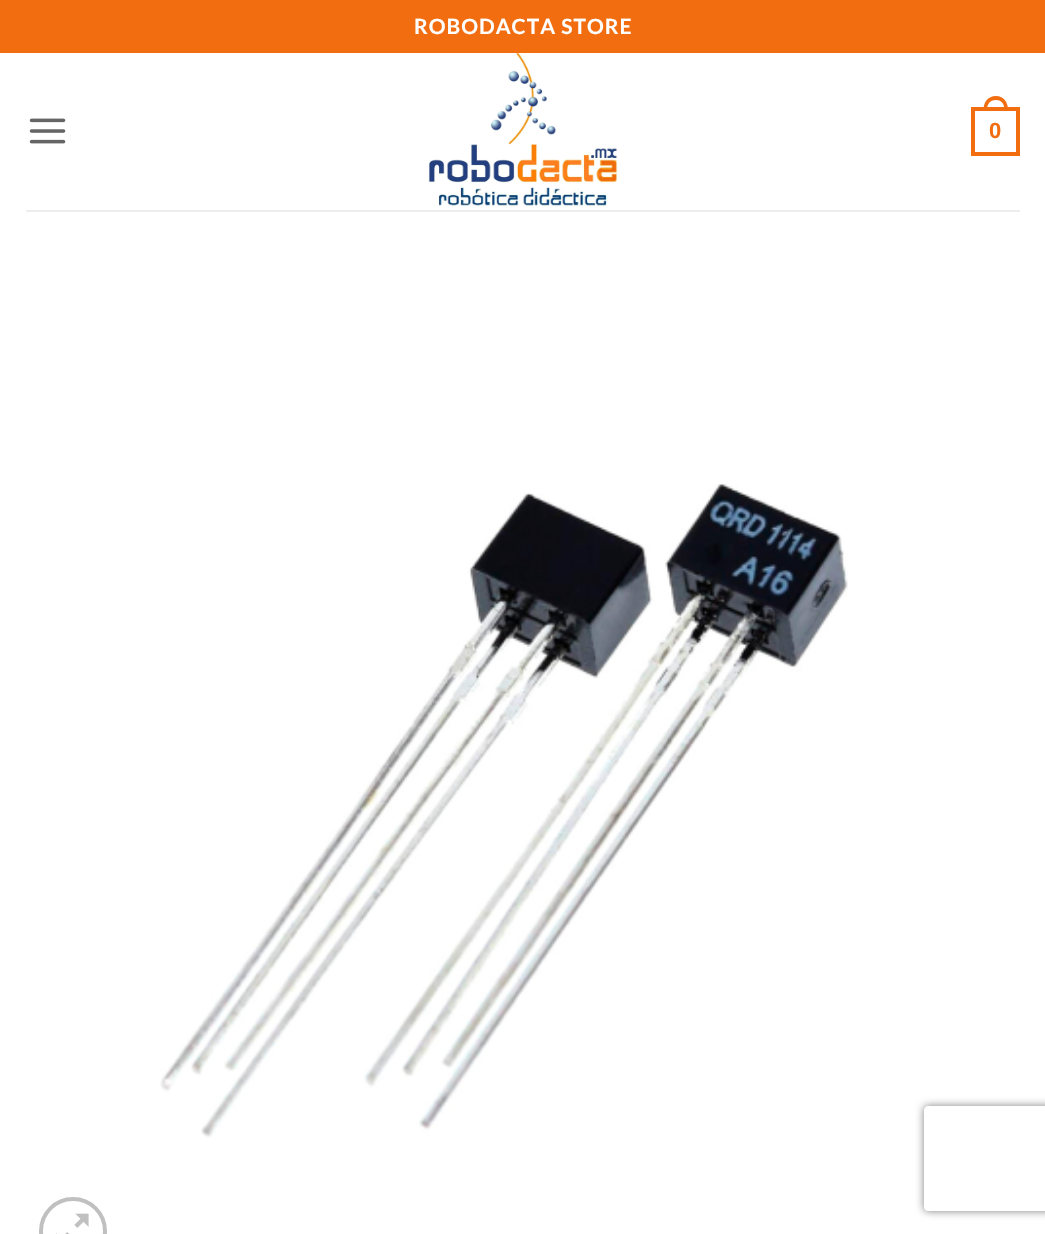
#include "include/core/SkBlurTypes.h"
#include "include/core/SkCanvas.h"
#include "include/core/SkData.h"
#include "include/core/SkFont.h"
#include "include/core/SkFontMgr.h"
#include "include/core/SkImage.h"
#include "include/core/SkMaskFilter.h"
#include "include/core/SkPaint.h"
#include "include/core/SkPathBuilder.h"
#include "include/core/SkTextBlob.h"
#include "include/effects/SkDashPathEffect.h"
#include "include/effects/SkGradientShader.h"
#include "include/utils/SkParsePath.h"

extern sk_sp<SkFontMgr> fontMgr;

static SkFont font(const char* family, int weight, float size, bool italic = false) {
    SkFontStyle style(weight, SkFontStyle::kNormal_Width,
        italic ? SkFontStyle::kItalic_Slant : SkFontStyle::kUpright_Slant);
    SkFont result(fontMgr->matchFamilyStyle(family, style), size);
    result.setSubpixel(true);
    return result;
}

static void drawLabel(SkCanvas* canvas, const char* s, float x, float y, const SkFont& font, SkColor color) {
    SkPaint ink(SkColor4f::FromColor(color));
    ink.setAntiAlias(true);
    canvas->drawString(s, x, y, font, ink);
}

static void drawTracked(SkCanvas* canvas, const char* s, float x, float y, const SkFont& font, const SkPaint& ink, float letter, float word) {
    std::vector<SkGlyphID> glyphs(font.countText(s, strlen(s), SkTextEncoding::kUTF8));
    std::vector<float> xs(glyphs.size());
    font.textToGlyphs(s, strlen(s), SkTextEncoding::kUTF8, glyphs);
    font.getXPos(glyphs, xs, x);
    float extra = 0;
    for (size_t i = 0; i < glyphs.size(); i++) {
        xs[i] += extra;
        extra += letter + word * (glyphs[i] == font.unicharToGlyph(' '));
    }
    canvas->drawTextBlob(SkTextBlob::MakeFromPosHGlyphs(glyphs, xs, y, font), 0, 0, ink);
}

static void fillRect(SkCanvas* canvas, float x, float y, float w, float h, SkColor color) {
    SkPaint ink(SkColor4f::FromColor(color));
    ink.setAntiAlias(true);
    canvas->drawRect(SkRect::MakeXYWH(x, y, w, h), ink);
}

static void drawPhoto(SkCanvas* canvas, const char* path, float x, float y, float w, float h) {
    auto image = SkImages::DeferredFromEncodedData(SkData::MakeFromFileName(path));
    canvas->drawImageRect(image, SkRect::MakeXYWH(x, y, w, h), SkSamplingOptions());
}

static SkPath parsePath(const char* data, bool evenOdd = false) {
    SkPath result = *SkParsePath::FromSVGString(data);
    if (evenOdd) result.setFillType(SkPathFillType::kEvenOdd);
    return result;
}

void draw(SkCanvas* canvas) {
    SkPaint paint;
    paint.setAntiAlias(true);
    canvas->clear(0xFFFFFFFF);
    fillRect(canvas, 0, 0, 1045, 53, 0xFFF16D10);
    SkFont font1 = font("Lato", 700, 21);
    paint.setColor(0xFFFFFFFF);
    drawTracked(canvas, "ROBODACTA STORE", 414, 34, font1, paint, 1, 0);
    drawPhoto(canvas, "assets/img1.png", 29, 118, 37, 26);
    drawPhoto(canvas, "assets/img2.png", 428, 53, 190, 154);
    paint.setStroke(true);
    paint.setStrokeWidth(4);
    paint.setColor(0xFFF16D10);
    canvas->drawRect(SkRect::MakeXYWH(973, 109, 45, 45), paint);
    paint.setStroke(false);
    canvas->drawPath(parsePath("M996 96C1004 96 1008 102.5 1008 110H983.5C983.5 102.5 987.5 96 996 96ZM996 100C1002 100 1004.5 104.5 1004.5 110H987C987 104.5 989.5 100 996 100Z", true), paint);
    SkFont font2 = font("Liberation Sans", 700, 22);
    drawLabel(canvas, "0", 989, 138, font2, 0xFFF16D10);
    fillRect(canvas, 26, 210, 994, 2, 0xFFEDEDED);
    drawPhoto(canvas, "assets/img3.png", 160, 483, 688, 655);
    paint.setStroke(true);
    paint.setColor(0xFFC0C0C0);
    canvas->drawCircle(73, 1231, 32, paint);
    drawPhoto(canvas, "assets/img4.png", 56, 1213, 33, 21);
    canvas->save();
    canvas->clipPath(parsePath("M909 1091H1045V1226H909ZM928 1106H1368C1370 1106 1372 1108 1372 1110V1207C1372 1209 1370 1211 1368 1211H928C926 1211 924 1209 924 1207V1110C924 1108 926 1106 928 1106Z", true), true);
    paint.setStroke(false);
    paint.setColor(0xFF808080);
    paint.setMaskFilter(SkMaskFilter::MakeBlur(kNormal_SkBlurStyle, 4.5f));
    canvas->drawRoundRect(SkRect::MakeXYWH(924, 1106, 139, 105), 4, 4, paint);
    paint.setMaskFilter(nullptr);
    canvas->restore();
}
